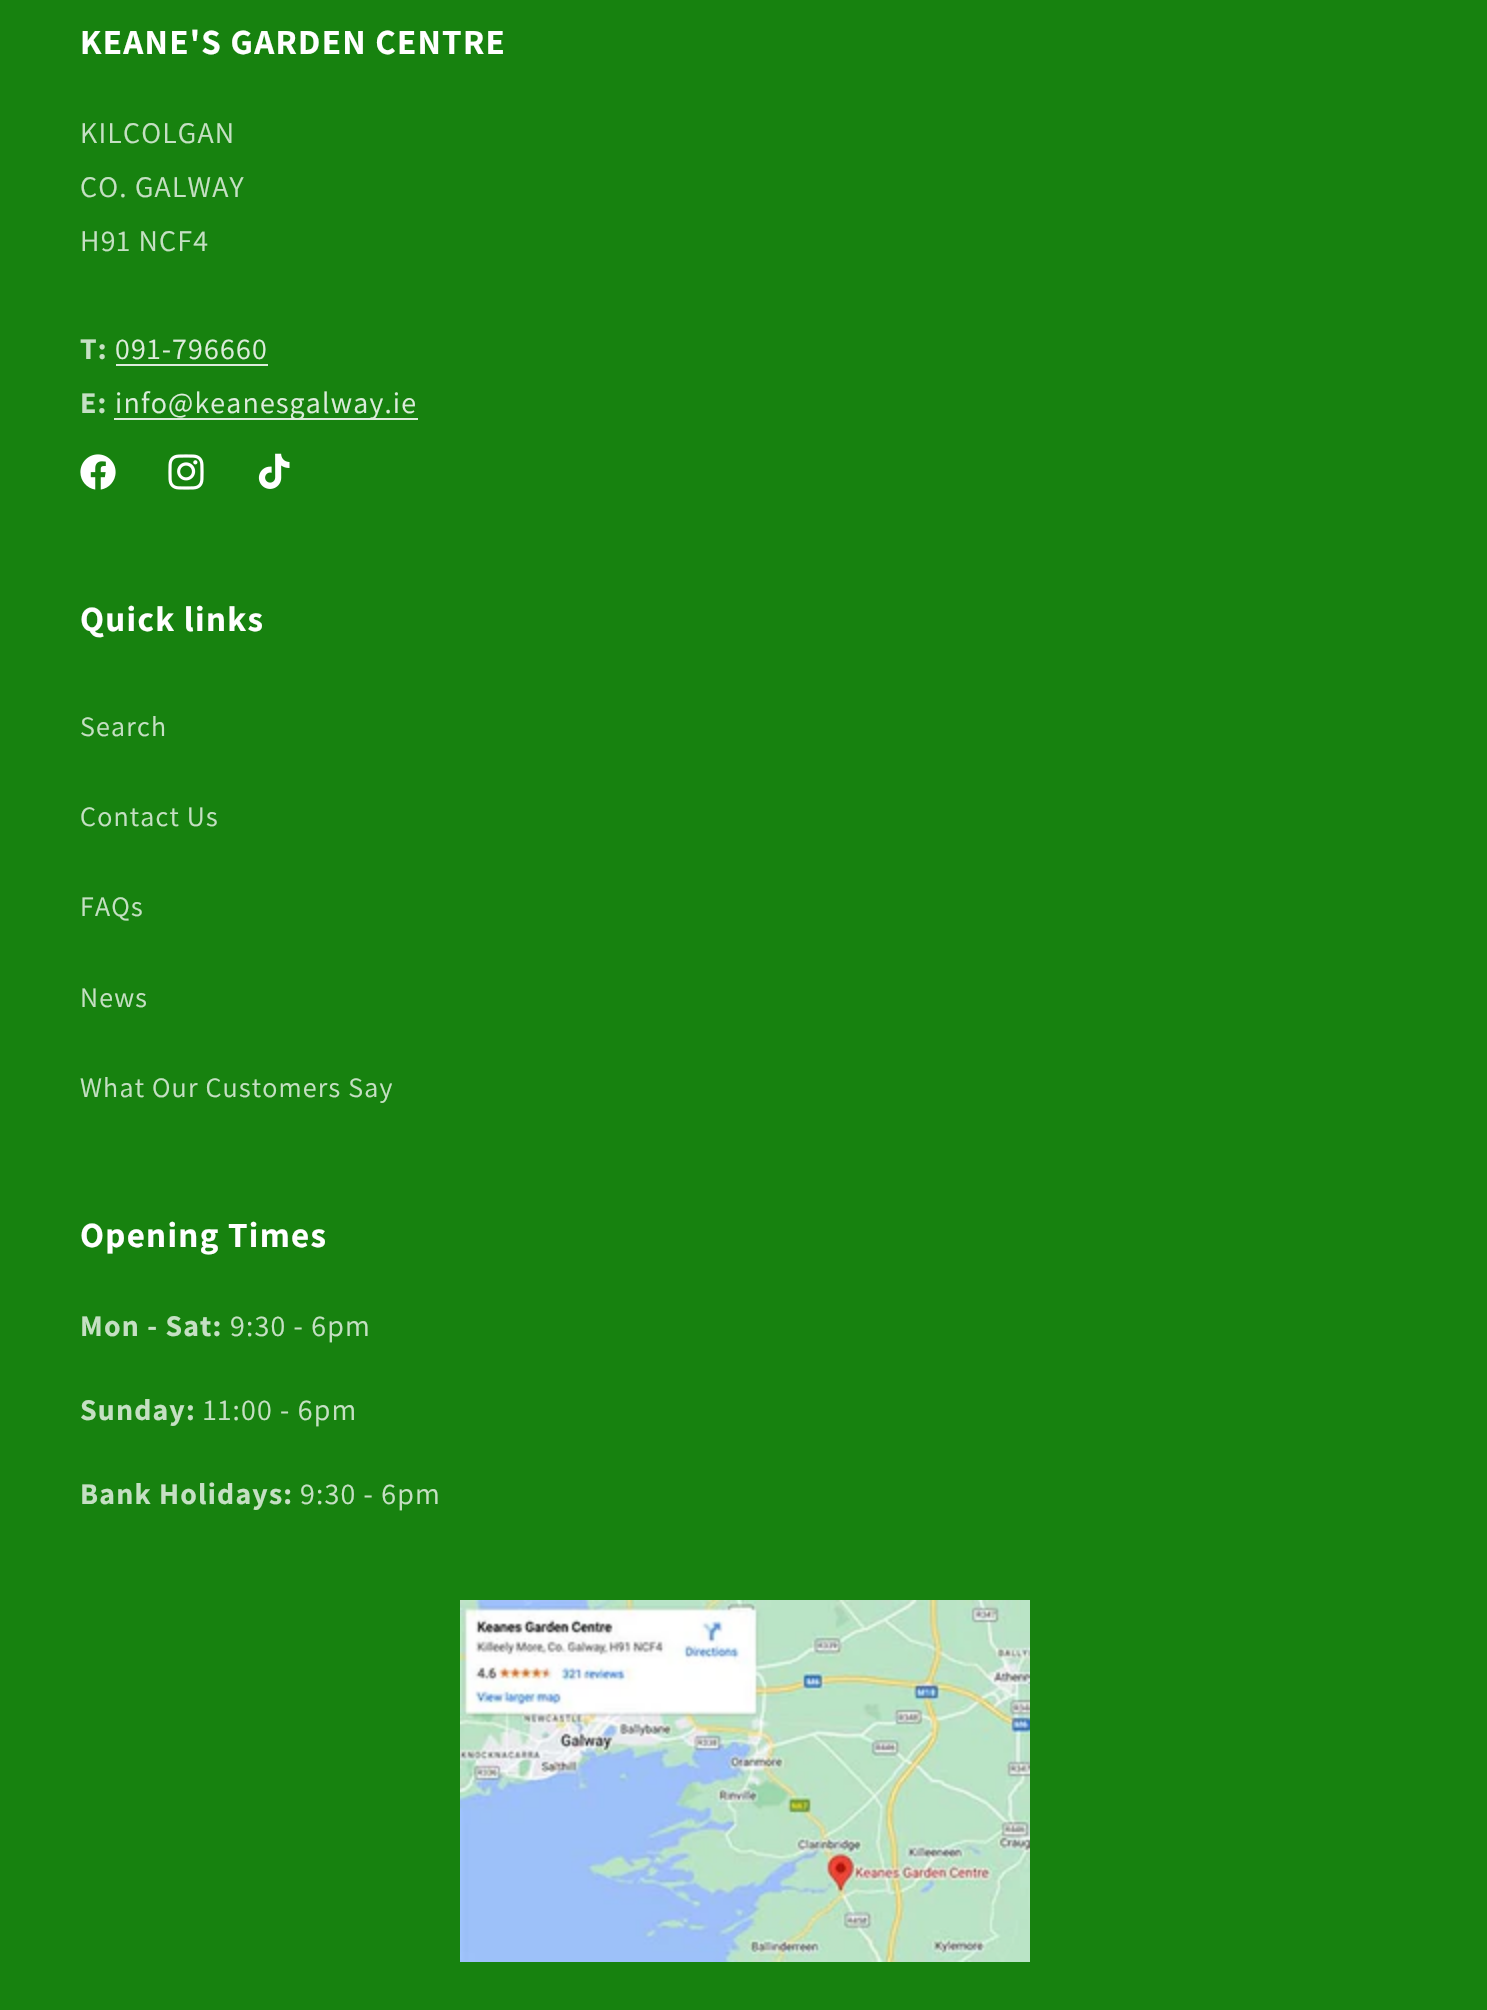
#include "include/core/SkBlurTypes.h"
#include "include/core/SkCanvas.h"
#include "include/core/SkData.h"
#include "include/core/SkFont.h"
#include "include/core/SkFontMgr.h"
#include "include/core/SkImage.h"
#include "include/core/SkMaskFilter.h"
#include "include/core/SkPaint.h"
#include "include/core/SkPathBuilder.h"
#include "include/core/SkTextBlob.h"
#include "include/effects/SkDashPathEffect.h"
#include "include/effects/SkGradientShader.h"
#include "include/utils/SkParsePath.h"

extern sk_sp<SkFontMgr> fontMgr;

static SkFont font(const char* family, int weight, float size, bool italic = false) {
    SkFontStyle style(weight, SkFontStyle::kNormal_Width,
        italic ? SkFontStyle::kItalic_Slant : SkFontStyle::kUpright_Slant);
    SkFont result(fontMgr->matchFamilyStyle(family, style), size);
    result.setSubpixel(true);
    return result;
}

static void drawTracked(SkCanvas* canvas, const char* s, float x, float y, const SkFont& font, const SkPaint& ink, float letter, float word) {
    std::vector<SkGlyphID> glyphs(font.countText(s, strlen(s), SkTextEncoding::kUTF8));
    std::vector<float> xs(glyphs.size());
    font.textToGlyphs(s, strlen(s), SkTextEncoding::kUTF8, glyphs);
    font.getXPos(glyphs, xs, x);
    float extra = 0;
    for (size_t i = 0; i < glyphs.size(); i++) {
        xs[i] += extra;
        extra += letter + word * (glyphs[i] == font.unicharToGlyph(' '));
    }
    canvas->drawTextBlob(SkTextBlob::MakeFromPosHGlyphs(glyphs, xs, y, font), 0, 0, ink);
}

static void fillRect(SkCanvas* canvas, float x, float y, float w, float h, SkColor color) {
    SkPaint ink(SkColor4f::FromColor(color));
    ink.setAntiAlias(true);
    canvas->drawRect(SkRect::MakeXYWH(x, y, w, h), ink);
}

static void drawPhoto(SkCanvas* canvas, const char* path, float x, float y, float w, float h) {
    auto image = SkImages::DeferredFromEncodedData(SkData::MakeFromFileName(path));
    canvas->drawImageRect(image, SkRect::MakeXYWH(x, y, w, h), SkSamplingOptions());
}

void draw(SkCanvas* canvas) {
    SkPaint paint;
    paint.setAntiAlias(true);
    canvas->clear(0xFF17820F);
    SkFont font1 = font("Assistant", 700, 35.25f);
    paint.setColor(0xFFFFFFFF);
    drawTracked(canvas, "KEANE'S GARDEN CENTRE", 80, 54, font1, paint, 1.3f, 0);
    SkFont font2 = font("Assistant", 400, 30);
    paint.setColor(0xFFC5E0C3);
    drawTracked(canvas, "KILCOLGAN", 80, 143, font2, paint, 1.2f, 0);
    drawTracked(canvas, "CO. GALWAY", 80, 197, font2, paint, 1.2f, 0);
    drawTracked(canvas, "H91 NCF4", 80, 251, font2, paint, 1.2f, 0);
    SkFont font3 = font("Assistant", 700, 30);
    drawTracked(canvas, "T:", 80, 359, font3, paint, 1.2f, 0);
    paint.setColor(0xFFDCECDB);
    drawTracked(canvas, "091-796660", 115, 359, font2, paint, 1.2f, 0);
    fillRect(canvas, 116, 364, 152, 2, 0xFFDCECDB);
    paint.setColor(0xFFC5E0C3);
    drawTracked(canvas, "E:", 80, 413, font3, paint, 1.2f, 0);
    fillRect(canvas, 114, 418, 304, 2, 0xFFDCECDB);
    paint.setColor(0xFFDCECDB);
    drawTracked(canvas, "info@keanesgalway.ie", 115, 413, font2, paint, 1.2f, 0);
    drawPhoto(canvas, "assets/img1.png", 80, 454, 36, 36);
    drawPhoto(canvas, "assets/img2.png", 168, 454, 36, 36);
    drawPhoto(canvas, "assets/img3.png", 258, 453, 32, 36);
    paint.setColor(0xFFFFFFFF);
    drawTracked(canvas, "Quick links", 80, 631, font1, paint, 1.3f, 0);
    SkFont font4 = font("Assistant", 400, 28);
    paint.setColor(0xFFC5E0C3);
    drawTracked(canvas, "Search", 80, 736, font4, paint, 1.2f, 0);
    drawTracked(canvas, "Contact Us", 80, 826, font4, paint, 1.2f, 0);
    drawTracked(canvas, "FAQs", 80, 916, font4, paint, 1.2f, 0);
    drawTracked(canvas, "News", 80, 1007, font4, paint, 1.2f, 0);
    drawTracked(canvas, "What Our Customers Say", 80, 1097, font4, paint, 1.2f, 0);
    paint.setColor(0xFFFFFFFF);
    drawTracked(canvas, "Opening Times", 80, 1247, font1, paint, 1.3f, 0);
    paint.setColor(0xFFC5E0C3);
    drawTracked(canvas, "Mon - Sat:", 80, 1336, font3, paint, 1.2f, 0);
    drawTracked(canvas, "9:30 - 6pm", 230, 1336, font2, paint, 1.2f, 0);
    drawTracked(canvas, "Sunday:", 80, 1420, font3, paint, 1.2f, 0);
    drawTracked(canvas, "11:00 - 6pm", 203, 1420, font2, paint, 1.2f, 0);
    drawTracked(canvas, "Bank Holidays:", 80, 1504, font3, paint, 1.2f, 0);
    drawTracked(canvas, "9:30 - 6pm", 300, 1504, font2, paint, 1.2f, 0);
    drawPhoto(canvas, "assets/img4.png", 460, 1600, 570, 362);
}
